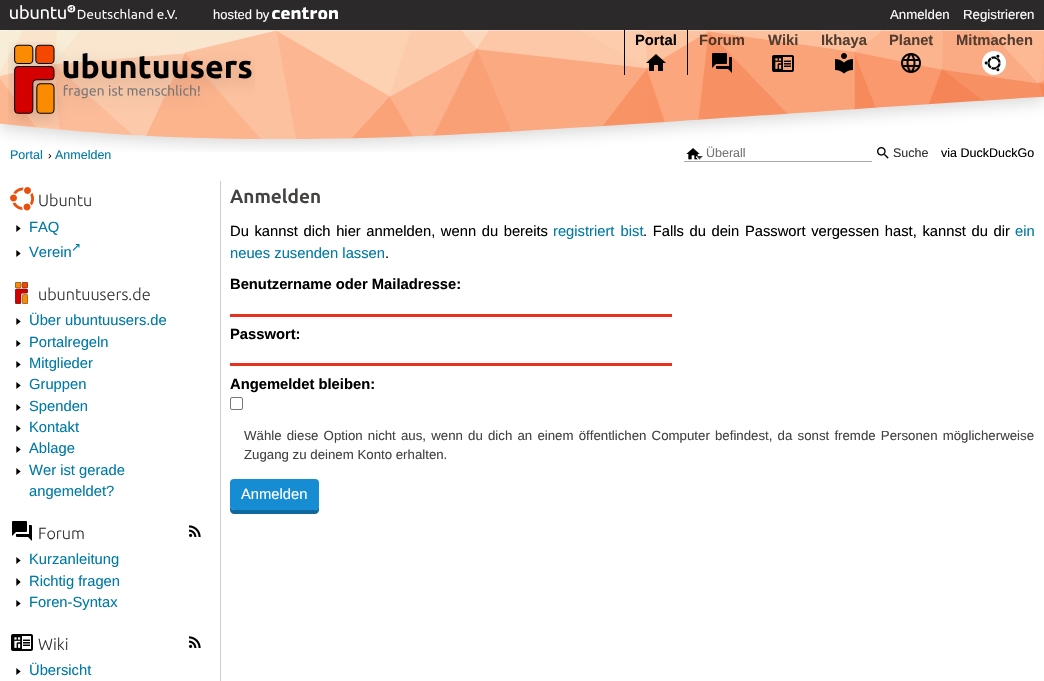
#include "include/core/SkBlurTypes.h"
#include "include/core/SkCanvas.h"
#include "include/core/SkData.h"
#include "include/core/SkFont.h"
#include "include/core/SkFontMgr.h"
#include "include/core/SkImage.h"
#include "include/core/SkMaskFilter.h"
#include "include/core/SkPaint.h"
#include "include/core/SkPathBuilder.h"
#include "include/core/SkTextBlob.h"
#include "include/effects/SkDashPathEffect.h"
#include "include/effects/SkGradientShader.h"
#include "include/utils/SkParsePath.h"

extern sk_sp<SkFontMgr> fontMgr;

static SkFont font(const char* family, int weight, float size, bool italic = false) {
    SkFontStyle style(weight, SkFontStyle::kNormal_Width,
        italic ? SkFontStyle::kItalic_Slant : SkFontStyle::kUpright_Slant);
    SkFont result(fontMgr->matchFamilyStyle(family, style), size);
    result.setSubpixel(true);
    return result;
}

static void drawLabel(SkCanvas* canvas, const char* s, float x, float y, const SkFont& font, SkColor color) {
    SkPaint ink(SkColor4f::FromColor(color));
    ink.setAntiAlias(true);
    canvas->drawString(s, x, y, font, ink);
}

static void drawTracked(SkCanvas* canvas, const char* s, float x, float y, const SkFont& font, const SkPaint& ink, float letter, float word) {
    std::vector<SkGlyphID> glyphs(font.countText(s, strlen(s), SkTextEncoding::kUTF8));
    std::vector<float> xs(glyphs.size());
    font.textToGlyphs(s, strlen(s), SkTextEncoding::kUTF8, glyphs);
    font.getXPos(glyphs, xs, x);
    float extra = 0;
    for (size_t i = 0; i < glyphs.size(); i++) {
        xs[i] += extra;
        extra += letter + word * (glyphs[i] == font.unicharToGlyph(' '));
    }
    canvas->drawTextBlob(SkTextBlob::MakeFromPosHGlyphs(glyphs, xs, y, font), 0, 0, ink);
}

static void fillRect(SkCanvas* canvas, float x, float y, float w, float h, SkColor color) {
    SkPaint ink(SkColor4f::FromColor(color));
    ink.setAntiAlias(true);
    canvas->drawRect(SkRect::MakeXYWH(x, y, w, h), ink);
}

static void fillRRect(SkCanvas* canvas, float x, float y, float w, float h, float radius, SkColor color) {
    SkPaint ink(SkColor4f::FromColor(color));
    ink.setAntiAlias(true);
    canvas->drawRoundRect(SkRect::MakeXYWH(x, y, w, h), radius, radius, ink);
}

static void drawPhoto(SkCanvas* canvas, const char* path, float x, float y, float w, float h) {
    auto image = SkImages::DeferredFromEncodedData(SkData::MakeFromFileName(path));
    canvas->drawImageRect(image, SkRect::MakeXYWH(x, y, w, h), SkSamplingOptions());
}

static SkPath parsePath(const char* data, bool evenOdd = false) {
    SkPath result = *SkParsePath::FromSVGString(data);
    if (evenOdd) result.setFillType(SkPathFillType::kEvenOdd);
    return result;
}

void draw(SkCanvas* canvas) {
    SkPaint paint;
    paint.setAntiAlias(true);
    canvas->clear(0xFFFFFFFF);
    fillRect(canvas, 0, 0, 1044, 30, 0xFF2B2929);
    drawPhoto(canvas, "assets/img1.png", 10, 5, 167, 14);
    SkFont font1 = font("Liberation Sans", 400, 13);
    drawLabel(canvas, "hosted by", 213, 19, font1, 0xFFFFFFFF);
    drawPhoto(canvas, "assets/img2.png", 272, 7, 66, 12);
    SkFont font2 = font("Liberation Sans", 400, 13.25f);
    drawLabel(canvas, "Anmelden", 890, 19, font2, 0xFFFFFFFF);
    drawLabel(canvas, "Registrieren", 963, 19, font2, 0xFFFFFFFF);
    SkFont font3 = font("Liberation Sans", 400, 12.5f);
    drawLabel(canvas, "Portal", 10, 159, font3, 0xFF007AA6);
    drawLabel(canvas, "Anmelden", 55, 159, font3, 0xFF007AA6);
    drawPhoto(canvas, "assets/img12.png", 686, 148, 14, 12);
    drawLabel(canvas, "Überall", 706, 157, font3, 0xFF757575);
    drawLabel(canvas, "via DuckDuckGo", 941, 157, font3, 0xFF000000);
    drawPhoto(canvas, "assets/img3.png", 0, 30, 1044, 122);
    drawPhoto(canvas, "assets/img4.png", 8, 42, 247, 84);
    fillRect(canvas, 687, 30, 1, 45, 0xFF000000);
    fillRect(canvas, 624, 30, 1, 45, 0xFF000000);
    SkFont font4 = font("Liberation Sans", 700, 14.75f);
    drawLabel(canvas, "Portal", 635, 45, font4, 0xFF000000);
    drawPhoto(canvas, "assets/img5.png", 646, 54, 20, 17);
    drawLabel(canvas, "Forum", 699, 45, font4, 0xFF523527);
    drawPhoto(canvas, "assets/img6.png", 712, 53, 20, 20);
    drawLabel(canvas, "Wiki", 768, 45, font4, 0xFF533D30);
    drawPhoto(canvas, "assets/img7.png", 772, 55, 22, 17);
    drawLabel(canvas, "Ikhaya", 821, 45, font4, 0xFF533D30);
    drawPhoto(canvas, "assets/img8.png", 835, 53, 18, 21);
    drawLabel(canvas, "Planet", 889, 45, font4, 0xFF533D30);
    drawPhoto(canvas, "assets/img9.png", 901, 53, 20, 20);
    drawLabel(canvas, "Mitmachen", 956, 45, font4, 0xFF533D30);
    drawPhoto(canvas, "assets/img10.png", 982, 51, 24, 24);
    SkFont font5 = font("Liberation Sans", 400, 11);
    drawLabel(canvas, "›", 48, 159, font5, 0xFF000000);
    drawPhoto(canvas, "assets/img11.png", 696, 156, 7, 4);
    fillRect(canvas, 684, 161, 188, 1, 0xFFAAAAAA);
    drawPhoto(canvas, "assets/img13.png", 877, 147, 12, 12);
    drawLabel(canvas, "Suche", 893, 157, font3, 0xFF333333);
    fillRect(canvas, 220, 181, 1, 500, 0xFFCCCCCC);
    drawPhoto(canvas, "assets/img14.png", 10, 187, 24, 24);
    SkFont font6 = font("Ubuntu", 300, 16.25f);
    drawLabel(canvas, "Ubuntu", 38, 206, font6, 0xFF333333);
    drawPhoto(canvas, "assets/img15.png", 16, 225, 5, 7);
    SkFont font7 = font("Liberation Sans", 400, 14.75f);
    drawLabel(canvas, "FAQ", 29, 232, font7, 0xFF007AA6);
    drawPhoto(canvas, "assets/img16.png", 16, 250, 5, 7);
    drawLabel(canvas, "Verein", 29, 257, font7, 0xFF007AA6);
    SkFont font8 = font("DejaVu Sans", 400, 12);
    drawLabel(canvas, "↗", 71, 251, font8, 0xFF007AA6);
    drawPhoto(canvas, "assets/img17.png", 15, 282, 13, 22);
    drawLabel(canvas, "ubuntuusers.de", 38, 300, font6, 0xFF333333);
    drawPhoto(canvas, "assets/img15.png", 16, 318, 5, 7);
    drawLabel(canvas, "Über ubuntuusers.de", 29, 325, font7, 0xFF007AA6);
    drawPhoto(canvas, "assets/img15.png", 16, 340, 5, 7);
    drawLabel(canvas, "Portalregeln", 29, 347, font7, 0xFF007AA6);
    drawPhoto(canvas, "assets/img15.png", 16, 361, 5, 7);
    drawLabel(canvas, "Mitglieder", 29, 368, font7, 0xFF007AA6);
    drawPhoto(canvas, "assets/img15.png", 16, 382, 5, 7);
    drawLabel(canvas, "Gruppen", 29, 389, font7, 0xFF007AA6);
    drawPhoto(canvas, "assets/img15.png", 16, 404, 5, 7);
    drawLabel(canvas, "Spenden", 29, 411, font7, 0xFF007AA6);
    drawPhoto(canvas, "assets/img15.png", 16, 425, 5, 7);
    drawLabel(canvas, "Kontakt", 29, 432, font7, 0xFF007AA6);
    drawPhoto(canvas, "assets/img15.png", 16, 446, 5, 7);
    drawLabel(canvas, "Ablage", 29, 453, font7, 0xFF007AA6);
    drawPhoto(canvas, "assets/img15.png", 16, 468, 5, 7);
    drawLabel(canvas, "Wer ist gerade", 29, 475, font7, 0xFF007AA6);
    drawLabel(canvas, "angemeldet?", 29, 496, font7, 0xFF007AA6);
    drawPhoto(canvas, "assets/img18.png", 12, 521, 20, 20);
    drawLabel(canvas, "Forum", 38, 539, font6, 0xFF333333);
    drawPhoto(canvas, "assets/img19.png", 189, 525, 12, 12);
    drawPhoto(canvas, "assets/img15.png", 16, 557, 5, 7);
    drawLabel(canvas, "Kurzanleitung", 29, 564, font7, 0xFF007AA6);
    drawPhoto(canvas, "assets/img20.png", 16, 578, 5, 8);
    drawLabel(canvas, "Richtig fragen", 29, 586, font7, 0xFF007AA6);
    drawPhoto(canvas, "assets/img15.png", 16, 600, 5, 7);
    drawLabel(canvas, "Foren-Syntax", 29, 607, font7, 0xFF007AA6);
    drawPhoto(canvas, "assets/img21.png", 11, 634, 22, 17);
    drawLabel(canvas, "Wiki", 38, 650, font6, 0xFF333333);
    drawPhoto(canvas, "assets/img19.png", 189, 636, 12, 12);
    drawPhoto(canvas, "assets/img15.png", 16, 668, 5, 7);
    drawLabel(canvas, "Übersicht", 29, 675, font7, 0xFF007AA6);
    SkFont font9 = font("Ubuntu", 700, 19);
    drawLabel(canvas, "Anmelden", 230, 203, font9, 0xFF454242);
    paint.setColor(0xFF000000);
    drawTracked(canvas, "Du kannst dich hier anmelden, wenn du bereits", 230, 236, font7, paint, 0, 1.5f);
    paint.setColor(0xFF007AA6);
    drawTracked(canvas, "registriert bist", 553, 236, font7, paint, 0, 2);
    paint.setColor(0xFF000000);
    drawTracked(canvas, ". Falls du dein Passwort vergessen hast, kannst du dir", 643, 236, font7, paint, 0, 1.5f);
    drawLabel(canvas, "ein", 1015, 236, font7, 0xFF007AA6);
    drawLabel(canvas, "neues zusenden lassen", 230, 258, font7, 0xFF007AA6);
    drawLabel(canvas, ".", 385, 258, font7, 0xFF000000);
    drawLabel(canvas, "Benutzername oder Mailadresse:", 230, 289, font4, 0xFF000000);
    fillRect(canvas, 230, 314, 442, 3, 0xFFE93122);
    drawLabel(canvas, "Passwort:", 230, 339, font4, 0xFF000000);
    fillRect(canvas, 230, 363, 442, 3, 0xFFE93122);
    drawLabel(canvas, "Angemeldet bleiben:", 230, 389, font4, 0xFF000000);
    paint.setStroke(true);
    paint.setStrokeWidth(1);
    paint.setColor(0xFF767676);
    canvas->drawRoundRect(SkRect::MakeXYWH(230.5f, 397.5f, 12, 12), 1.5f, 1.5f, paint);
    paint.setStroke(false);
    paint.setColor(0xFF454242);
    drawTracked(canvas, "Wähle diese Option nicht aus, wenn du dich an einem öffentlichen Computer befindest, da sonst fremde Personen möglicherweise", 244, 440, font2, paint, 0, 1.5f);
    drawLabel(canvas, "Zugang zu deinem Konto erhalten.", 244, 459, font2, 0xFF454242);
    paint.setColor(0xFF10699E);
    canvas->drawPath(parsePath("M230 506V510C230 512 232 514 234 514H315C317 514 319 512 319 510V506C319 508 317 510 315 510H234C232 510 230 508 230 506Z"), paint);
    fillRRect(canvas, 230, 479, 89, 31, 4, 0xFF168CD2);
    drawLabel(canvas, "Anmelden", 241, 499, font7, 0xFFFFFFFF);
}
